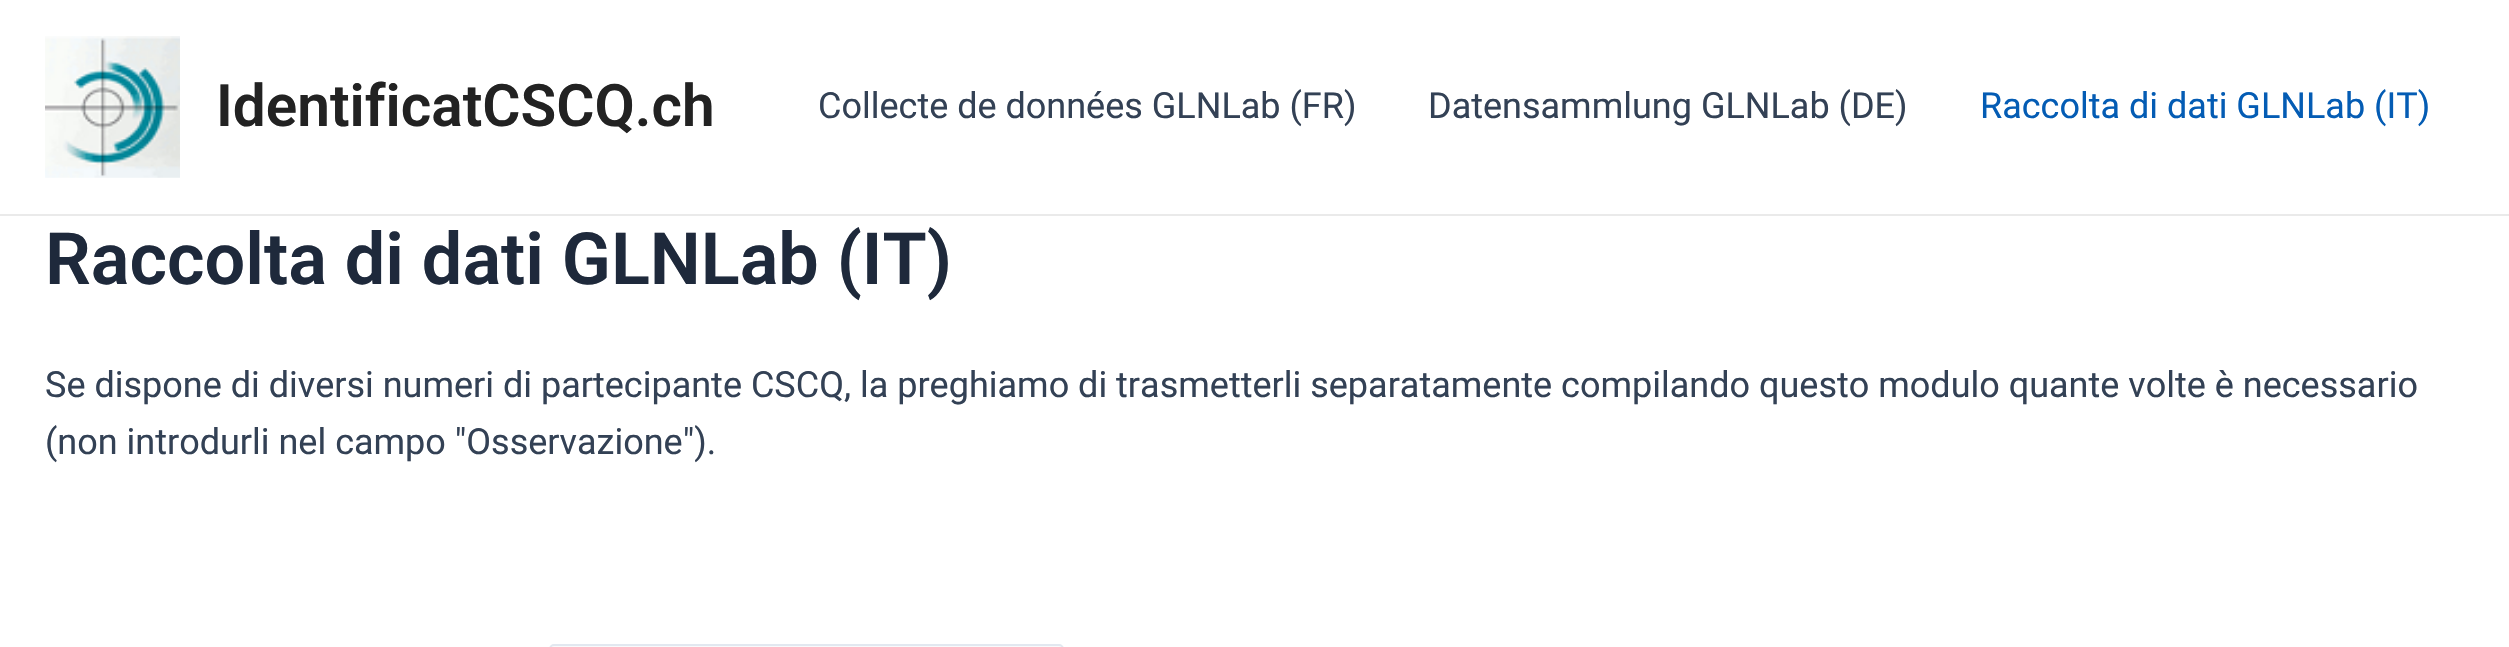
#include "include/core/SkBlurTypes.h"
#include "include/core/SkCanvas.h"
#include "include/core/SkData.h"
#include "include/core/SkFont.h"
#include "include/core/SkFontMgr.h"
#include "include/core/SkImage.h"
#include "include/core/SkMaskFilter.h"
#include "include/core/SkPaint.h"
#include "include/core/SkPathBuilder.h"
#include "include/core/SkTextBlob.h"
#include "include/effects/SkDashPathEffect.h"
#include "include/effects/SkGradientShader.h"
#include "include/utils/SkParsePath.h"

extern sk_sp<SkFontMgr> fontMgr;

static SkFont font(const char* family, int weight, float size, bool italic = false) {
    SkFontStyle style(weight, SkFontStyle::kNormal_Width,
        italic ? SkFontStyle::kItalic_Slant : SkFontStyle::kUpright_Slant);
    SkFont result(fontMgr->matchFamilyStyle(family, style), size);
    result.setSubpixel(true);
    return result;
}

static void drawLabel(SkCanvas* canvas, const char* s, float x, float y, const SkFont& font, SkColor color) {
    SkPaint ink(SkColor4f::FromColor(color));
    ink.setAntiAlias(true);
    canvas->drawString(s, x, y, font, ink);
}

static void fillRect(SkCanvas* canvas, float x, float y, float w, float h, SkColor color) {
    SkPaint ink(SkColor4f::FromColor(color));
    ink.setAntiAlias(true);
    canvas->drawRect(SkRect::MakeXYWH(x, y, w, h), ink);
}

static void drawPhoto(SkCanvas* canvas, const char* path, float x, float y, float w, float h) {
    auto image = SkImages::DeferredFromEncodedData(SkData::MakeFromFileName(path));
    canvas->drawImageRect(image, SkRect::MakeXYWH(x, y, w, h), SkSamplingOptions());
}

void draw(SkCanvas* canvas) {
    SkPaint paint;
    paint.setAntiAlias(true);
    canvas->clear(0xFFFFFFFF);
    fillRect(canvas, 0, 214, 2509, 2, 0xFFEAEAEA);
    drawPhoto(canvas, "assets/img1.png", 45, 36, 135, 142);
    SkFont font1 = font("Roboto", 600, 58.5f);
    drawLabel(canvas, "IdentificatCSCQ.ch", 216, 126, font1, 0xFF222222);
    SkFont font2 = font("Roboto", 400, 36);
    drawLabel(canvas, "Collecte de données GLNLab (FR)", 818, 118, font2, 0xFF334155);
    drawLabel(canvas, "Datensammlung GLNLab (DE)", 1428, 118, font2, 0xFF334155);
    drawLabel(canvas, "Raccolta di dati GLNLab (IT)", 1980, 118, font2, 0xFF045CB4);
    SkFont font3 = font("Roboto", 600, 72);
    drawLabel(canvas, "Raccolta di dati GLNLab (IT)", 45, 284, font3, 0xFF1E293B);
    drawLabel(canvas, "Se dispone di diversi numeri di partecipante CSCQ, la preghiamo di trasmetterli separatamente compilando questo modulo quante volte è necessario", 45, 397, font2, 0xFF334155);
    drawLabel(canvas, "(non introdurli nel campo \"Osservazione\").", 45, 454, font2, 0xFF334155);
    paint.setColor(0xFFF9FAFB);
    canvas->drawRoundRect(SkRect::MakeXYWH(550, 645, 513, 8), 4, 4, paint);
    paint.setStroke(true);
    paint.setStrokeWidth(2);
    paint.setColor(0xFFE2E8F0);
    canvas->drawRoundRect(SkRect::MakeXYWH(550, 645, 513, 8), 4, 4, paint);
}
